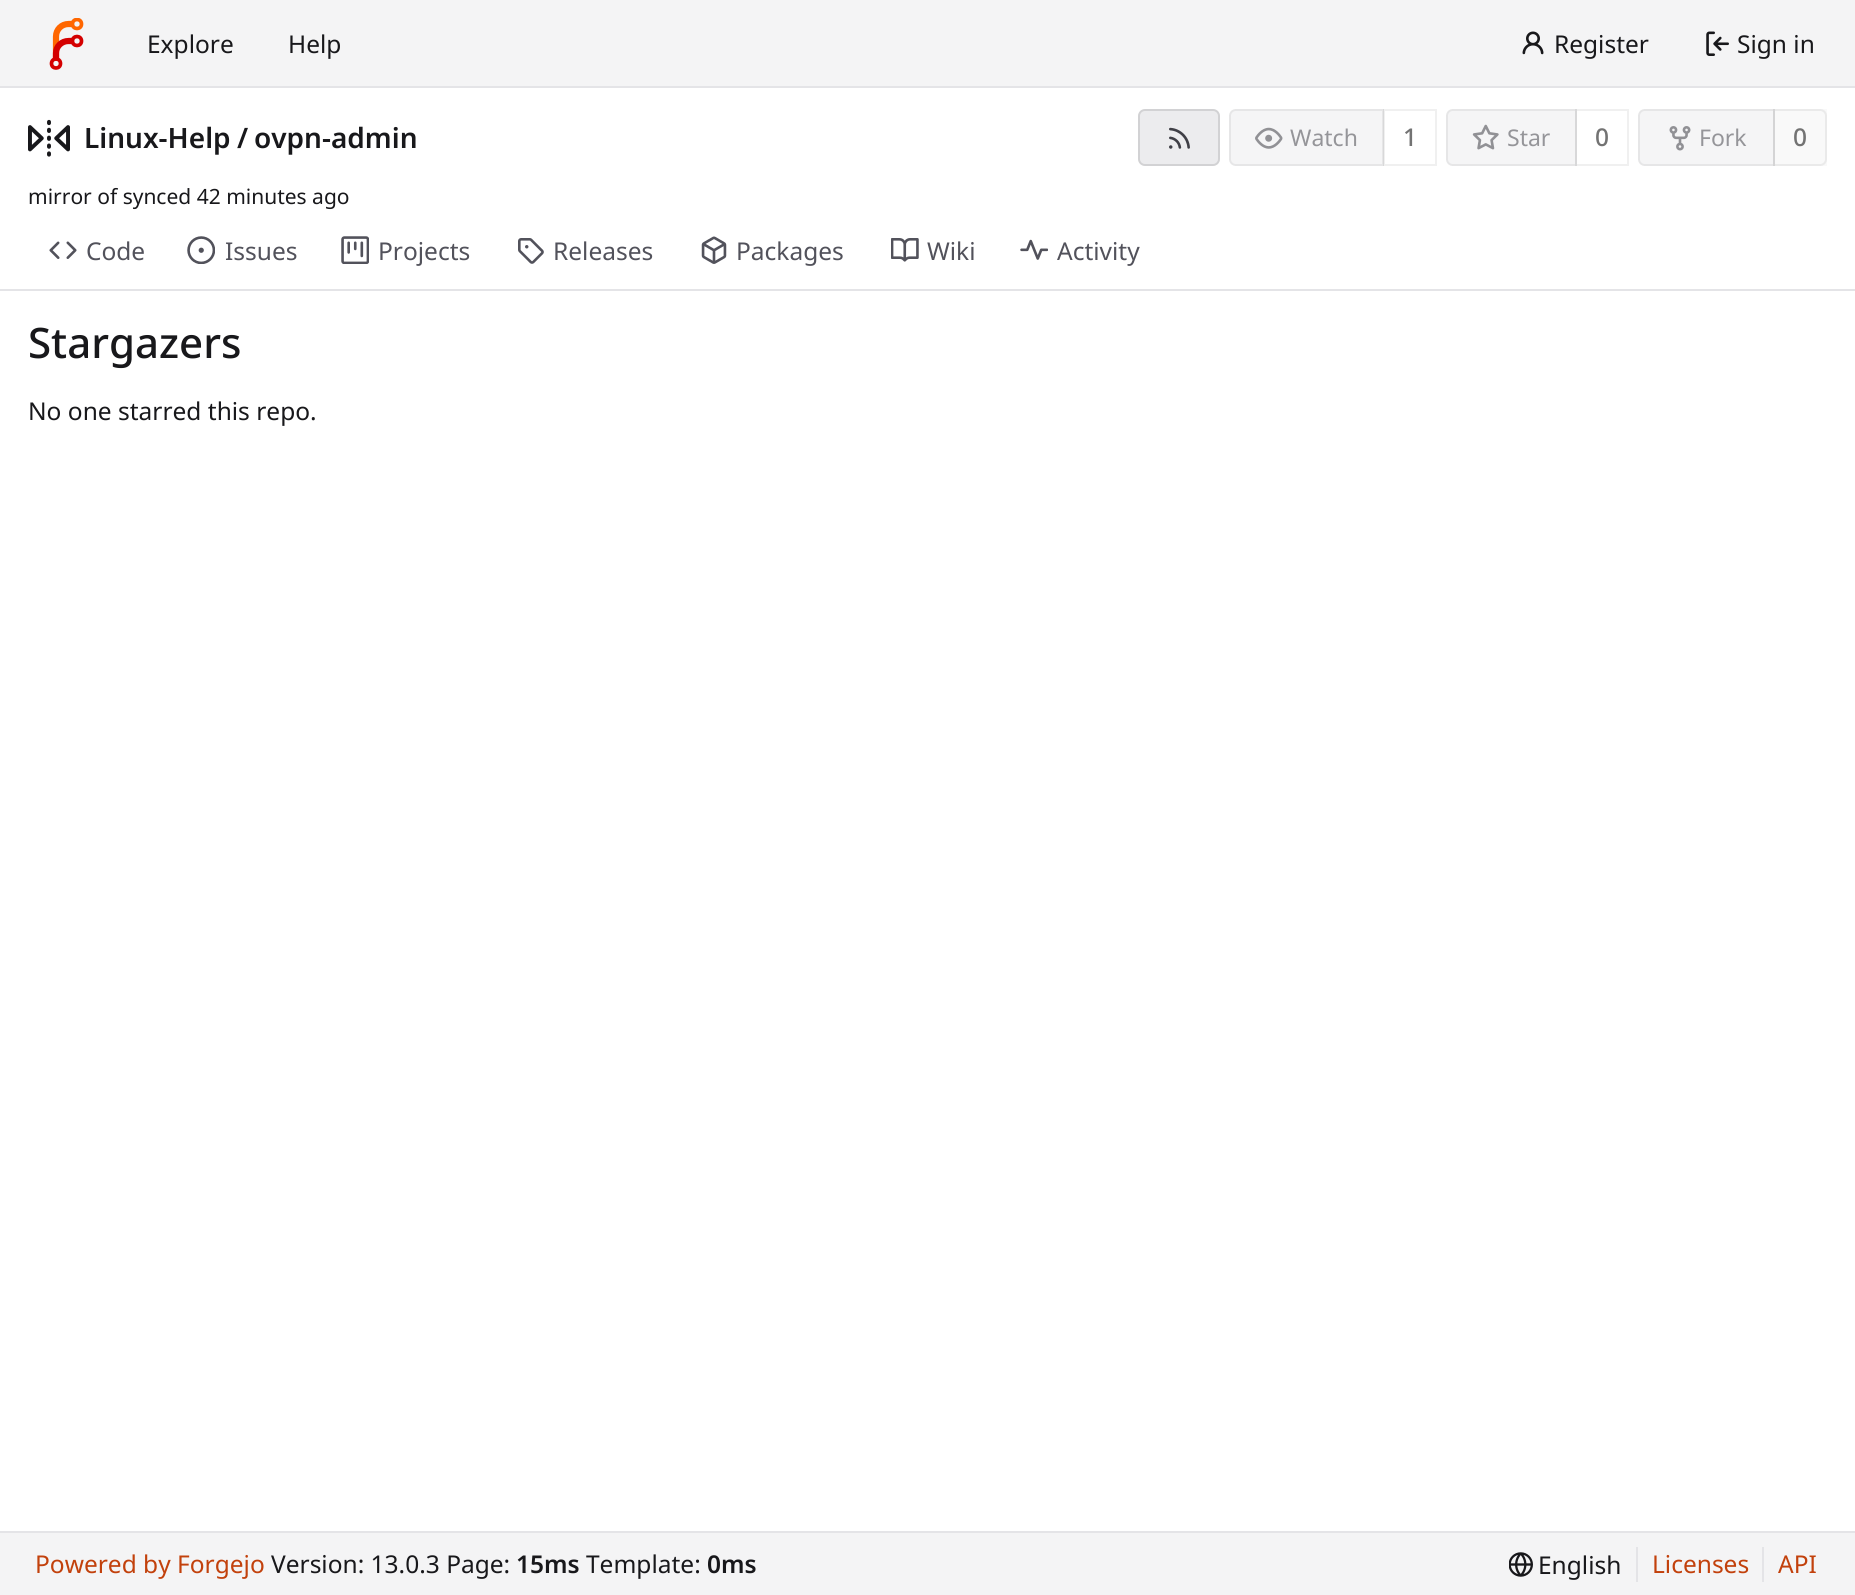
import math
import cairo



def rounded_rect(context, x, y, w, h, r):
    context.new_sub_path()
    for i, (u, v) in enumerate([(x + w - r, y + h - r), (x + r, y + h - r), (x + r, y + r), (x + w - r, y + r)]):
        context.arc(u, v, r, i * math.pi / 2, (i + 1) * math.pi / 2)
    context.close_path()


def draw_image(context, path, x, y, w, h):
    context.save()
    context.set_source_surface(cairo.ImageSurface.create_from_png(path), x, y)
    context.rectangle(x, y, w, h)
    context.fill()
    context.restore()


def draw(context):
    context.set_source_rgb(1, 1, 1)
    context.paint()
    context.set_source_rgb(244 / 255, 244 / 255, 245 / 255)
    context.rectangle(0, 0, 1855, 86)
    context.fill()
    context.set_source_rgb(228 / 255, 228 / 255, 231 / 255)
    context.rectangle(0, 86, 1855, 2)
    context.fill()
    context.new_path()
    context.move_to(56, 60.5)
    context.line_to(56, 36.5)
    context.curve_to(56, 29.5, 61.5, 24, 68.5, 24)
    context.line_to(73.5, 24)
    context.set_source_rgb(1, 102 / 255, 0)
    context.set_line_width(6.2)
    context.stroke()
    context.new_path()
    context.move_to(56, 60.5)
    context.line_to(56, 53)
    context.curve_to(56, 46.5, 61.5, 41, 68.5, 41)
    context.line_to(73.5, 41)
    context.set_source_rgb(212 / 255, 0, 0)
    context.stroke()
    context.save()
    context.rectangle(40, 18, 53, 52)
    context.clip()
    context.arc(77, 24, 4.5, 0, 2 * math.pi)
    context.set_source_rgb(1, 102 / 255, 0)
    context.set_line_width(3.7)
    context.stroke()
    context.restore()
    context.arc(77, 41, 4.5, 0, 2 * math.pi)
    context.set_line_width(3.7)
    context.stroke()
    context.arc(56, 63.5, 4.5, 0, 2 * math.pi)
    context.stroke()
    draw_image(context, "images/1.png", 1522, 31, 22, 24)
    draw_image(context, "images/2.png", 1706, 31, 23, 25)
    draw_image(context, "images/3.png", 28, 119, 42, 38)
    context.set_source_rgb(236 / 255, 236 / 255, 238 / 255)
    rounded_rect(context, 1138, 109, 82, 57, 7)
    context.fill()
    rounded_rect(context, 1139, 110, 80, 55, 6)
    context.set_source_rgba(0, 0, 0, 0.11)
    context.set_line_width(2)
    context.stroke()
    draw_image(context, "images/4.png", 1169, 127, 21, 22)
    context.set_source_rgb(245 / 255, 245 / 255, 246 / 255)
    context.new_path()
    context.move_to(1236, 109)
    context.line_to(1384, 109)
    context.line_to(1384, 166)
    context.line_to(1236, 166)
    context.curve_to(1232, 166, 1229, 163, 1229, 159)
    context.line_to(1229, 116)
    context.curve_to(1229, 112, 1232, 109, 1236, 109)
    context.close_path()
    context.fill()
    context.new_path()
    context.move_to(1236, 110)
    context.line_to(1383, 110)
    context.line_to(1383, 165)
    context.line_to(1236, 165)
    context.curve_to(1232.5, 165, 1230, 162.5, 1230, 159)
    context.line_to(1230, 116)
    context.curve_to(1230, 112.5, 1232.5, 110, 1236, 110)
    context.close_path()
    context.set_source_rgba(115 / 255, 115 / 255, 115 / 255, 0.11)
    context.stroke()
    draw_image(context, "images/5.png", 1255, 127, 28, 22)
    context.rectangle(1384, 110, 52, 55)
    context.set_source_rgba(0, 0, 0, 0.06)
    context.stroke()
    context.set_source_rgb(245 / 255, 245 / 255, 246 / 255)
    context.new_path()
    context.move_to(1453, 109)
    context.line_to(1577, 109)
    context.line_to(1577, 166)
    context.line_to(1453, 166)
    context.curve_to(1449, 166, 1446, 163, 1446, 159)
    context.line_to(1446, 116)
    context.curve_to(1446, 112, 1449, 109, 1453, 109)
    context.close_path()
    context.fill()
    context.new_path()
    context.move_to(1453, 110)
    context.line_to(1576, 110)
    context.line_to(1576, 165)
    context.line_to(1453, 165)
    context.curve_to(1449.5, 165, 1447, 162.5, 1447, 159)
    context.line_to(1447, 116)
    context.curve_to(1447, 112.5, 1449.5, 110, 1453, 110)
    context.close_path()
    context.set_source_rgba(115 / 255, 115 / 255, 115 / 255, 0.11)
    context.stroke()
    draw_image(context, "images/6.png", 1472, 124, 27, 26)
    context.rectangle(1576, 110, 52, 55)
    context.set_source_rgba(0, 0, 0, 0.06)
    context.stroke()
    context.set_source_rgb(245 / 255, 245 / 255, 246 / 255)
    context.new_path()
    context.move_to(1645, 109)
    context.line_to(1775, 109)
    context.line_to(1775, 166)
    context.line_to(1645, 166)
    context.curve_to(1641, 166, 1638, 163, 1638, 159)
    context.line_to(1638, 116)
    context.curve_to(1638, 112, 1641, 109, 1645, 109)
    context.close_path()
    context.fill()
    context.new_path()
    context.move_to(1645, 110)
    context.line_to(1774, 110)
    context.line_to(1774, 165)
    context.line_to(1645, 165)
    context.curve_to(1641.5, 165, 1639, 162.5, 1639, 159)
    context.line_to(1639, 116)
    context.curve_to(1639, 112.5, 1641.5, 110, 1645, 110)
    context.close_path()
    context.set_source_rgba(115 / 255, 115 / 255, 115 / 255, 0.11)
    context.stroke()
    draw_image(context, "images/7.png", 1669, 126, 22, 25)
    context.set_source_rgba(115 / 255, 115 / 255, 115 / 255, 0.04)
    context.rectangle(1773, 109, 54, 57)
    context.fill()
    context.new_path()
    context.move_to(1774, 110)
    context.line_to(1820, 110)
    context.curve_to(1823.5, 110, 1826, 112.5, 1826, 116)
    context.line_to(1826, 159)
    context.curve_to(1826, 162.5, 1823.5, 165, 1820, 165)
    context.line_to(1774, 165)
    context.close_path()
    context.set_source_rgba(115 / 255, 115 / 255, 115 / 255, 0.11)
    context.stroke()
    draw_image(context, "images/8.png", 49, 241, 28, 18)
    draw_image(context, "images/9.png", 187, 236, 28, 28)
    draw_image(context, "images/10.png", 341, 236, 28, 28)
    draw_image(context, "images/11.png", 518, 238, 26, 26)
    draw_image(context, "images/12.png", 701, 236, 26, 28)
    draw_image(context, "images/13.png", 891, 238, 28, 24)
    draw_image(context, "images/14.png", 1020, 239, 28, 21)
    context.set_source_rgb(228 / 255, 228 / 255, 231 / 255)
    context.rectangle(0, 289, 1855, 2)
    context.fill()
    context.set_source_rgb(244 / 255, 244 / 255, 245 / 255)
    context.rectangle(0, 1533, 1855, 62)
    context.fill()
    context.set_source_rgb(228 / 255, 228 / 255, 231 / 255)
    context.rectangle(0, 1531, 1855, 2)
    context.fill()
    draw_image(context, "images/15.png", 1509, 1552, 24, 25)
    context.rectangle(1636, 1547, 2, 35)
    context.fill()
    context.rectangle(1762, 1547, 2, 35)
    context.fill()
    context.select_font_face("Noto Sans")
    context.set_font_size(24.5)
    context.set_source_rgb(24 / 255, 24 / 255, 27 / 255)
    context.move_to(147, 53)
    context.show_text("Explore")
    context.move_to(288, 53)
    context.show_text("Help")
    context.move_to(1554, 53)
    context.show_text("Register")
    context.move_to(1737, 53)
    context.show_text("Sign in")
    context.select_font_face("Noto Sans SemiBold")
    context.set_font_size(28)
    context.move_to(84, 148)
    context.show_text("Linux-Help")
    context.move_to(237, 148)
    context.show_text("/")
    context.move_to(254, 148)
    context.show_text("ovpn-admin")
    context.select_font_face("Noto Sans")
    context.set_font_size(23)
    context.set_source_rgb(149 / 255, 149 / 255, 153 / 255)
    context.move_to(1290, 146)
    context.show_text("Watch")
    context.select_font_face("Noto Sans Medium")
    context.set_font_size(24.5)
    context.set_source_rgb(115 / 255, 115 / 255, 115 / 255)
    context.move_to(1403, 146)
    context.show_text("1")
    context.select_font_face("Noto Sans")
    context.set_font_size(23)
    context.set_source_rgb(149 / 255, 149 / 255, 153 / 255)
    context.move_to(1507, 146)
    context.show_text("Star")
    context.select_font_face("Noto Sans Medium")
    context.set_font_size(24.5)
    context.set_source_rgb(115 / 255, 115 / 255, 115 / 255)
    context.move_to(1595, 146)
    context.show_text("0")
    context.select_font_face("Noto Sans")
    context.set_font_size(23)
    context.set_source_rgb(149 / 255, 149 / 255, 153 / 255)
    context.move_to(1699, 146)
    context.show_text("Fork")
    context.select_font_face("Noto Sans Medium")
    context.set_font_size(24.5)
    context.set_source_rgb(115 / 255, 115 / 255, 115 / 255)
    context.move_to(1793, 146)
    context.show_text("0")
    context.select_font_face("Noto Sans")
    context.set_font_size(21)
    context.set_source_rgb(24 / 255, 24 / 255, 27 / 255)
    context.move_to(28, 204)
    context.show_text("mirror of synced 42 minutes ago")
    context.set_font_size(24.5)
    context.set_source_rgb(82 / 255, 82 / 255, 91 / 255)
    context.move_to(86, 260)
    context.show_text("Code")
    context.move_to(225, 260)
    context.show_text("Issues")
    context.move_to(378, 260)
    context.show_text("Projects")
    context.move_to(553, 260)
    context.show_text("Releases")
    context.move_to(736, 260)
    context.show_text("Packages")
    context.move_to(927, 260)
    context.show_text("Wiki")
    context.move_to(1057, 260)
    context.show_text("Activity")
    context.select_font_face("Noto Sans Medium")
    context.set_font_size(42)
    context.set_source_rgb(24 / 255, 24 / 255, 27 / 255)
    context.move_to(28, 358)
    context.show_text("Stargazers")
    context.select_font_face("Noto Sans")
    context.set_font_size(24.5)
    context.move_to(28, 420)
    context.show_text("No one starred this repo.")
    context.set_source_rgb(194 / 255, 65 / 255, 12 / 255)
    context.move_to(35, 1573)
    context.show_text("Powered by Forgejo")
    context.set_source_rgb(24 / 255, 24 / 255, 27 / 255)
    context.move_to(271, 1573)
    context.show_text("Version: 13.0.3 Page:")
    context.select_font_face("Noto Sans SemiBold")
    context.move_to(516, 1573)
    context.show_text("15ms")
    context.select_font_face("Noto Sans")
    context.move_to(586, 1573)
    context.show_text("Template:")
    context.select_font_face("Noto Sans SemiBold")
    context.move_to(707, 1573)
    context.show_text("0ms")
    context.select_font_face("Noto Sans")
    context.move_to(1538, 1574)
    context.show_text("English")
    context.set_source_rgb(194 / 255, 65 / 255, 12 / 255)
    context.move_to(1652, 1573)
    context.show_text("Licenses")
    context.move_to(1778, 1573)
    context.show_text("API")


surface = cairo.ImageSurface(cairo.Format.RGB24, 1855, 1595)
context = cairo.Context(surface)
options = cairo.FontOptions()
options.set_hint_metrics(cairo.HintMetrics.OFF)
options.set_hint_style(cairo.HintStyle.NONE)
context.set_font_options(options)
context.set_miter_limit(4)
draw(context)
surface.write_to_png("out.png")
